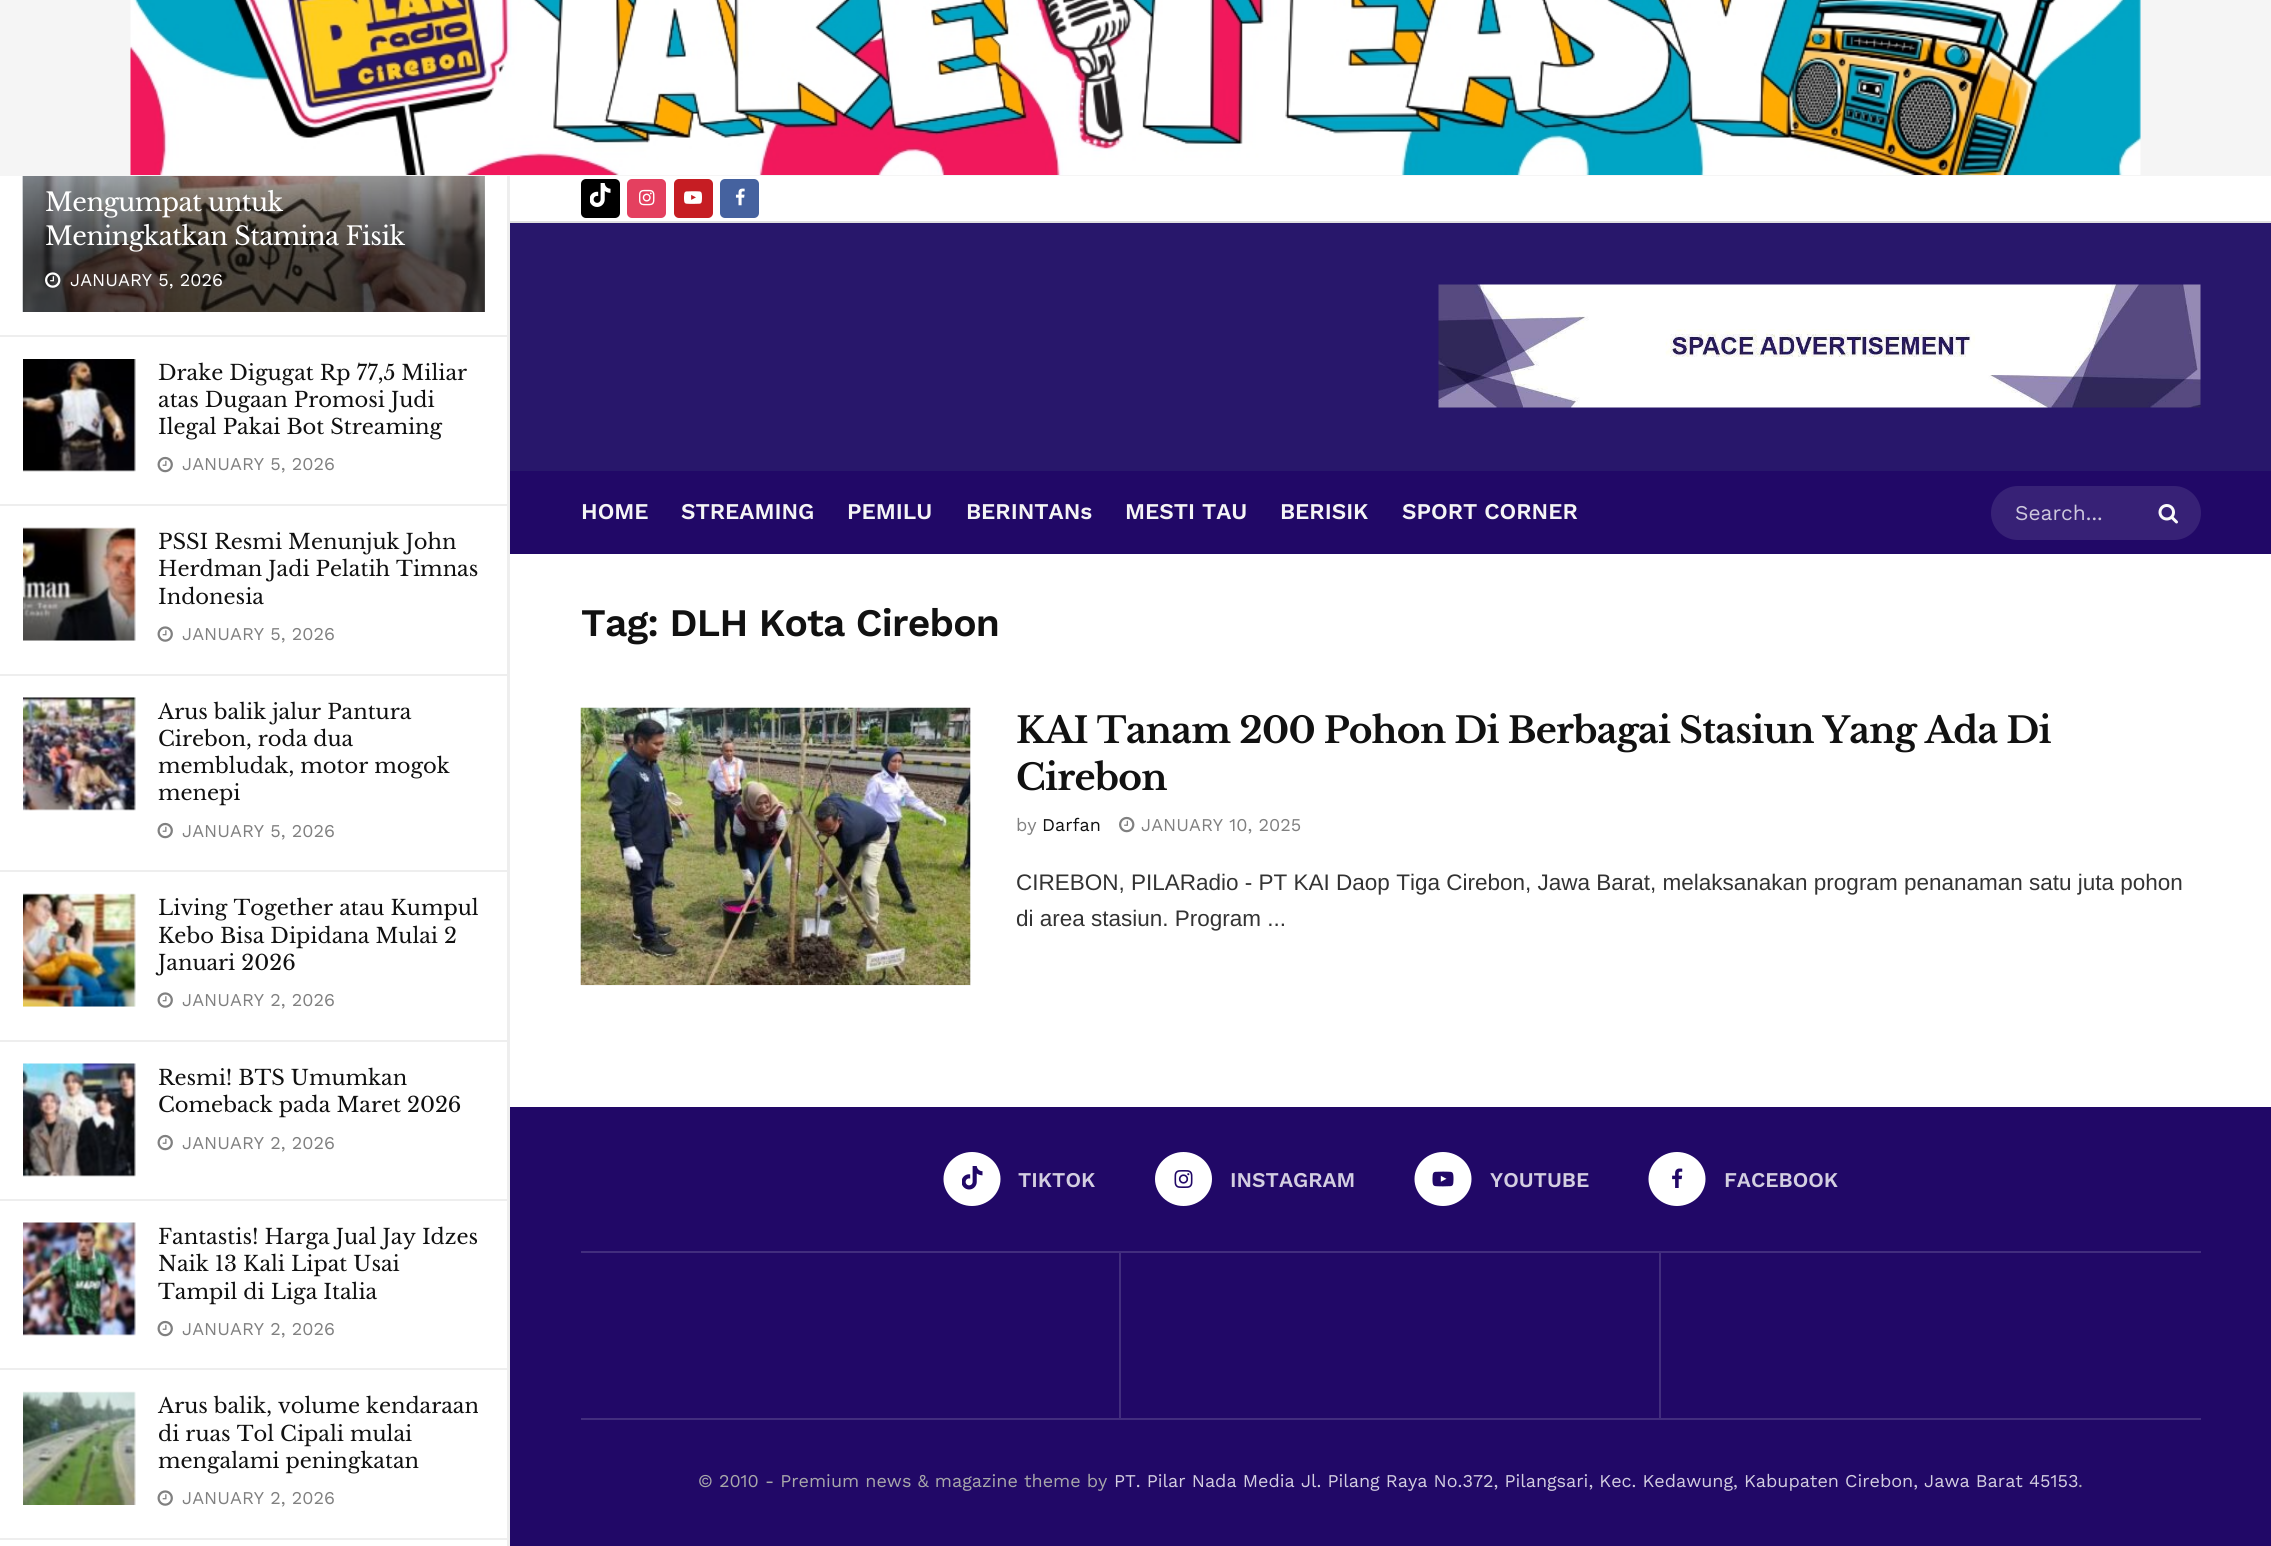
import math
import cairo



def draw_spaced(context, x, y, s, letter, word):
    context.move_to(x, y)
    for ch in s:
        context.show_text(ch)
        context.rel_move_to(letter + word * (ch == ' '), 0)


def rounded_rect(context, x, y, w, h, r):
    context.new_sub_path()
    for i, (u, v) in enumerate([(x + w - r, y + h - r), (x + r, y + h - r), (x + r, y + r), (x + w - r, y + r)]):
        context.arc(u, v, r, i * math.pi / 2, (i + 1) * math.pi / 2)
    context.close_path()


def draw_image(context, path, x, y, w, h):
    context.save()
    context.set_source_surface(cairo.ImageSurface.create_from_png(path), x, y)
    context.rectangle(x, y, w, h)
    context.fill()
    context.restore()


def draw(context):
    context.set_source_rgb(1, 1, 1)
    context.paint()
    context.set_source_rgb(245 / 255, 245 / 255, 245 / 255)
    context.rectangle(0, 0, 2271, 176)
    context.fill()
    draw_image(context, "images/1.png", 130, 0, 2011, 175)
    context.set_source_rgb(238 / 255, 238 / 255, 238 / 255)
    context.rectangle(507, 176, 3, 1370)
    context.fill()
    context.rectangle(0, 335, 507, 2)
    context.fill()
    context.set_source_rgb(247 / 255, 247 / 255, 247 / 255)
    context.rectangle(484, 176, 1, 136)
    context.fill()
    draw_image(context, "images/2.png", 22, 176, 1, 136)
    draw_image(context, "images/3.png", 22, 176, 463, 136)
    gradient = cairo.LinearGradient(254, 123, 254, 312)
    gradient.add_color_stop_rgba(0, 0, 0, 0, 0)
    gradient.add_color_stop_rgba(0.7, 0, 0, 0, 0.65)
    context.set_source(gradient)
    context.rectangle(23, 176, 462, 136)
    context.fill()
    draw_image(context, "images/4.png", 45, 272, 16, 16)
    context.set_source_rgb(238 / 255, 238 / 255, 238 / 255)
    context.rectangle(0, 504, 507, 2)
    context.fill()
    context.set_source_rgb(247 / 255, 247 / 255, 247 / 255)
    context.rectangle(23, 359, 112, 112)
    context.fill()
    draw_image(context, "images/5.png", 23, 359, 113, 113)
    draw_image(context, "images/6.png", 157, 456, 16, 17)
    context.set_source_rgb(238 / 255, 238 / 255, 238 / 255)
    context.rectangle(0, 674, 507, 2)
    context.fill()
    context.set_source_rgb(247 / 255, 247 / 255, 247 / 255)
    context.rectangle(23, 528, 112, 113)
    context.fill()
    draw_image(context, "images/7.png", 23, 527, 113, 114)
    draw_image(context, "images/8.png", 157, 626, 16, 16)
    context.set_source_rgb(238 / 255, 238 / 255, 238 / 255)
    context.rectangle(0, 870, 507, 2)
    context.fill()
    context.set_source_rgb(247 / 255, 247 / 255, 247 / 255)
    context.rectangle(23, 698, 112, 112)
    context.fill()
    draw_image(context, "images/9.png", 23, 697, 113, 114)
    draw_image(context, "images/6.png", 157, 822, 16, 17)
    context.set_source_rgb(238 / 255, 238 / 255, 238 / 255)
    context.rectangle(0, 1040, 507, 2)
    context.fill()
    context.set_source_rgb(247 / 255, 247 / 255, 247 / 255)
    context.rectangle(23, 894, 112, 113)
    context.fill()
    draw_image(context, "images/10.png", 23, 893, 113, 114)
    draw_image(context, "images/8.png", 157, 992, 16, 16)
    context.set_source_rgb(238 / 255, 238 / 255, 238 / 255)
    context.rectangle(0, 1199, 507, 2)
    context.fill()
    context.set_source_rgb(247 / 255, 247 / 255, 247 / 255)
    context.rectangle(23, 1064, 112, 112)
    context.fill()
    draw_image(context, "images/11.png", 23, 1063, 113, 114)
    draw_image(context, "images/6.png", 157, 1134, 16, 17)
    context.set_source_rgb(238 / 255, 238 / 255, 238 / 255)
    context.rectangle(0, 1368, 507, 2)
    context.fill()
    context.set_source_rgb(247 / 255, 247 / 255, 247 / 255)
    context.rectangle(23, 1223, 112, 112)
    context.fill()
    draw_image(context, "images/12.png", 23, 1222, 113, 114)
    draw_image(context, "images/6.png", 157, 1320, 16, 17)
    context.set_source_rgb(238 / 255, 238 / 255, 238 / 255)
    context.rectangle(0, 1538, 507, 2)
    context.fill()
    context.set_source_rgb(247 / 255, 247 / 255, 247 / 255)
    context.rectangle(23, 1392, 112, 113)
    context.fill()
    draw_image(context, "images/13.png", 23, 1391, 113, 114)
    draw_image(context, "images/8.png", 157, 1490, 16, 16)
    context.set_source_rgb(224 / 255, 224 / 255, 224 / 255)
    context.rectangle(510, 221, 1761, 2)
    context.fill()
    context.set_source_rgb(0, 0, 0)
    rounded_rect(context, 581, 179, 39, 39, 5)
    context.fill()
    draw_image(context, "images/14.png", 590, 183, 21, 24)
    context.set_source_rgb(228 / 255, 64 / 255, 95 / 255)
    rounded_rect(context, 627, 179, 39, 39, 5)
    context.fill()
    draw_image(context, "images/15.png", 639, 189, 16, 17)
    context.set_source_rgb(198 / 255, 29 / 255, 35 / 255)
    rounded_rect(context, 674, 179, 39, 39, 5)
    context.fill()
    draw_image(context, "images/16.png", 684, 191, 18, 13)
    context.set_source_rgb(69 / 255, 98 / 255, 159 / 255)
    rounded_rect(context, 720, 179, 39, 39, 5)
    context.fill()
    draw_image(context, "images/17.png", 735, 188, 10, 18)
    context.set_source_rgb(40 / 255, 23 / 255, 107 / 255)
    context.rectangle(510, 223, 1761, 248)
    context.fill()
    draw_image(context, "images/18.png", 1438, 284, 763, 124)
    context.set_source_rgb(33 / 255, 8 / 255, 103 / 255)
    context.rectangle(510, 471, 1761, 83)
    context.fill()
    context.set_source_rgb(55 / 255, 33 / 255, 118 / 255)
    rounded_rect(context, 1991, 486, 210, 54, 27)
    context.fill()
    draw_image(context, "images/19.png", 2158, 504, 20, 20)
    context.set_source_rgb(247 / 255, 247 / 255, 247 / 255)
    context.rectangle(581, 708, 390, 278)
    context.fill()
    draw_image(context, "images/20.png", 580, 707, 391, 278)
    draw_image(context, "images/21.png", 1119, 816, 16, 17)
    context.set_source_rgb(33 / 255, 8 / 255, 103 / 255)
    context.rectangle(510, 1107, 1761, 439)
    context.fill()
    context.set_source_rgb(66 / 255, 45 / 255, 126 / 255)
    context.rectangle(581, 1251, 1620, 2)
    context.fill()
    context.set_source_rgb(1, 1, 1)
    context.new_path()
    context.move_to(972, 1152)
    context.curve_to(987.5, 1152, 1000.5, 1164, 1000.5, 1179)
    context.curve_to(1000.5, 1194, 987.5, 1206, 972, 1206)
    context.curve_to(956.5, 1206, 943.5, 1194, 943.5, 1179)
    context.curve_to(943.5, 1164, 956.5, 1152, 972, 1152)
    context.close_path()
    context.fill()
    draw_image(context, "images/22.png", 962, 1166, 21, 24)
    context.new_path()
    context.move_to(1183.5, 1152)
    context.curve_to(1199, 1152, 1212, 1164, 1212, 1179)
    context.curve_to(1212, 1194, 1199, 1206, 1183.5, 1206)
    context.curve_to(1168, 1206, 1155, 1194, 1155, 1179)
    context.curve_to(1155, 1164, 1168, 1152, 1183.5, 1152)
    context.close_path()
    context.fill()
    draw_image(context, "images/23.png", 1174, 1170, 19, 18)
    context.new_path()
    context.move_to(1443, 1152)
    context.curve_to(1458.5, 1152, 1471.5, 1164, 1471.5, 1179)
    context.curve_to(1471.5, 1194, 1458.5, 1206, 1443, 1206)
    context.curve_to(1427.5, 1206, 1414.5, 1194, 1414.5, 1179)
    context.curve_to(1414.5, 1164, 1427.5, 1152, 1443, 1152)
    context.close_path()
    context.fill()
    draw_image(context, "images/24.png", 1432, 1171, 22, 16)
    context.new_path()
    context.move_to(1677, 1152)
    context.curve_to(1692.5, 1152, 1705.5, 1164, 1705.5, 1179)
    context.curve_to(1705.5, 1194, 1692.5, 1206, 1677, 1206)
    context.curve_to(1661.5, 1206, 1648.5, 1194, 1648.5, 1179)
    context.curve_to(1648.5, 1164, 1661.5, 1152, 1677, 1152)
    context.close_path()
    context.fill()
    draw_image(context, "images/25.png", 1672, 1168, 11, 20)
    context.set_source_rgb(66 / 255, 45 / 255, 126 / 255)
    context.rectangle(1119, 1253, 2, 165)
    context.fill()
    context.rectangle(1659, 1253, 2, 165)
    context.fill()
    context.rectangle(581, 1418, 1620, 2)
    context.fill()
    context.select_font_face("Libre Baskerville")
    context.set_font_size(25.5)
    context.set_source_rgb(1, 1, 1)
    draw_spaced(context, 45, 211, "Mengumpat untuk", -0.5, 0)
    draw_spaced(context, 45, 245, "Meningkatkan Stamina Fisik", -0.5, 0)
    context.select_font_face("Work Sans")
    context.set_font_size(18)
    context.move_to(70, 286)
    context.show_text("JANUARY 5, 2026")
    context.select_font_face("Libre Baskerville")
    context.set_font_size(21)
    context.set_source_rgb(17 / 255, 17 / 255, 17 / 255)
    context.move_to(158, 380)
    context.show_text("Drake Digugat Rp 77,5 Miliar")
    context.move_to(158, 407)
    context.show_text("atas Dugaan Promosi Judi")
    context.move_to(158, 434)
    context.show_text("Ilegal Pakai Bot Streaming")
    context.select_font_face("Work Sans")
    context.set_font_size(18)
    context.set_source_rgb(128 / 255, 128 / 255, 128 / 255)
    context.move_to(182, 470)
    context.show_text("JANUARY 5, 2026")
    context.select_font_face("Libre Baskerville")
    context.set_font_size(21)
    context.set_source_rgb(17 / 255, 17 / 255, 17 / 255)
    context.move_to(158, 549)
    context.show_text("PSSI Resmi Menunjuk John")
    context.move_to(158, 576)
    context.show_text("Herdman Jadi Pelatih Timnas")
    context.move_to(158, 604)
    context.show_text("Indonesia")
    context.select_font_face("Work Sans")
    context.set_font_size(18)
    context.set_source_rgb(128 / 255, 128 / 255, 128 / 255)
    context.move_to(182, 640)
    context.show_text("JANUARY 5, 2026")
    context.select_font_face("Libre Baskerville")
    context.set_font_size(21)
    context.set_source_rgb(17 / 255, 17 / 255, 17 / 255)
    context.move_to(158, 719)
    context.show_text("Arus balik jalur Pantura")
    context.move_to(158, 746)
    context.show_text("Cirebon, roda dua")
    context.move_to(158, 773)
    context.show_text("membludak, motor mogok")
    context.move_to(158, 800)
    context.show_text("menepi")
    context.select_font_face("Work Sans")
    context.set_font_size(18)
    context.set_source_rgb(128 / 255, 128 / 255, 128 / 255)
    context.move_to(182, 837)
    context.show_text("JANUARY 5, 2026")
    context.select_font_face("Libre Baskerville")
    context.set_font_size(21)
    context.set_source_rgb(17 / 255, 17 / 255, 17 / 255)
    context.move_to(158, 915)
    context.show_text("Living Together atau Kumpul")
    context.move_to(158, 943)
    context.show_text("Kebo Bisa Dipidana Mulai 2")
    context.move_to(158, 970)
    context.show_text("Januari 2026")
    context.select_font_face("Work Sans")
    context.set_font_size(18)
    context.set_source_rgb(128 / 255, 128 / 255, 128 / 255)
    context.move_to(182, 1006)
    context.show_text("JANUARY 2, 2026")
    context.select_font_face("Libre Baskerville")
    context.set_font_size(21)
    context.set_source_rgb(17 / 255, 17 / 255, 17 / 255)
    context.move_to(158, 1085)
    context.show_text("Resmi! BTS Umumkan")
    context.move_to(158, 1112)
    context.show_text("Comeback pada Maret 2026")
    context.select_font_face("Work Sans")
    context.set_font_size(18)
    context.set_source_rgb(128 / 255, 128 / 255, 128 / 255)
    context.move_to(182, 1149)
    context.show_text("JANUARY 2, 2026")
    context.select_font_face("Libre Baskerville")
    context.set_font_size(21)
    context.set_source_rgb(17 / 255, 17 / 255, 17 / 255)
    context.move_to(158, 1244)
    context.show_text("Fantastis! Harga Jual Jay Idzes")
    context.move_to(158, 1271)
    context.show_text("Naik 13 Kali Lipat Usai")
    context.move_to(158, 1299)
    context.show_text("Tampil di Liga Italia")
    context.select_font_face("Work Sans")
    context.set_font_size(18)
    context.set_source_rgb(128 / 255, 128 / 255, 128 / 255)
    context.move_to(182, 1335)
    context.show_text("JANUARY 2, 2026")
    context.select_font_face("Libre Baskerville")
    context.set_font_size(21)
    context.set_source_rgb(17 / 255, 17 / 255, 17 / 255)
    context.move_to(158, 1413)
    context.show_text("Arus balik, volume kendaraan")
    context.move_to(158, 1441)
    context.show_text("di ruas Tol Cipali mulai")
    context.move_to(158, 1468)
    context.show_text("mengalami peningkatan")
    context.select_font_face("Work Sans")
    context.set_font_size(18)
    context.set_source_rgb(128 / 255, 128 / 255, 128 / 255)
    context.move_to(182, 1504)
    context.show_text("JANUARY 2, 2026")
    context.select_font_face("Work Sans SemiBold")
    context.set_font_size(22.5)
    context.set_source_rgb(245 / 255, 245 / 255, 245 / 255)
    context.move_to(581, 519)
    context.show_text("HOME")
    context.move_to(681, 519)
    context.show_text("STREAMING")
    context.move_to(847, 519)
    context.show_text("PEMILU")
    context.move_to(966, 519)
    context.show_text("BERINTANs")
    context.move_to(1125, 519)
    context.show_text("MESTI TAU")
    context.move_to(1280, 519)
    context.show_text("BERISIK")
    context.move_to(1402, 519)
    context.show_text("SPORT CORNER")
    context.select_font_face("Work Sans")
    context.set_font_size(21)
    context.set_source_rgb(205 / 255, 200 / 255, 221 / 255)
    context.move_to(2015, 520)
    context.show_text("Search...")
    context.select_font_face("Work Sans SemiBold")
    context.set_font_size(39)
    context.set_source_rgb(17 / 255, 17 / 255, 17 / 255)
    draw_spaced(context, 581, 636, "Tag: DLH Kota Cirebon", -0.75, 0)
    context.select_font_face("Libre Baskerville", cairo.FontSlant.NORMAL, cairo.FontWeight.BOLD)
    context.set_font_size(36)
    draw_spaced(context, 1016, 743, "KAI Tanam 200 Pohon Di Berbagai Stasiun Yang Ada Di", -0.72, 0)
    draw_spaced(context, 1016, 790, "Cirebon", -0.72, 0)
    context.select_font_face("Work Sans")
    context.set_font_size(18)
    context.set_source_rgb(128 / 255, 128 / 255, 128 / 255)
    context.move_to(1016, 831)
    context.show_text("by")
    context.set_source_rgb(17 / 255, 17 / 255, 17 / 255)
    context.move_to(1042, 831)
    context.show_text("Darfan")
    context.set_source_rgb(128 / 255, 128 / 255, 128 / 255)
    context.move_to(1141, 831)
    context.show_text("JANUARY 10, 2025")
    context.select_font_face("Liberation Sans")
    context.set_font_size(22.5)
    context.set_source_rgb(51 / 255, 51 / 255, 51 / 255)
    context.move_to(1016, 890)
    context.show_text("CIREBON, PILARadio - PT KAI Daop Tiga Cirebon, Jawa Barat, melaksanakan program penanaman satu juta pohon")
    context.move_to(1016, 926)
    context.show_text("di area stasiun. Program ...")
    context.select_font_face("Work Sans SemiBold")
    context.set_font_size(21)
    context.set_source_rgb(211 / 255, 206 / 255, 225 / 255)
    context.move_to(1018, 1187)
    context.show_text("TIKTOK")
    context.move_to(1230, 1187)
    context.show_text("INSTAGRAM")
    context.move_to(1490, 1187)
    context.show_text("YOUTUBE")
    context.move_to(1724, 1187)
    context.show_text("FACEBOOK")
    context.select_font_face("Work Sans")
    context.set_font_size(18)
    context.set_source_rgb(168 / 255, 168 / 255, 170 / 255)
    context.move_to(698, 1487)
    context.show_text("© 2010 - Premium news & magazine theme by")
    context.set_source_rgb(211 / 255, 206 / 255, 225 / 255)
    context.move_to(1114, 1487)
    context.show_text("PT. Pilar Nada Media Jl. Pilang Raya No.372, Pilangsari, Kec. Kedawung, Kabupaten Cirebon, Jawa Barat 45153")
    context.set_source_rgb(168 / 255, 168 / 255, 170 / 255)
    context.move_to(2078, 1487)
    context.show_text(".")


surface = cairo.ImageSurface(cairo.Format.RGB24, 2271, 1546)
context = cairo.Context(surface)
options = cairo.FontOptions()
options.set_hint_metrics(cairo.HintMetrics.OFF)
options.set_hint_style(cairo.HintStyle.NONE)
context.set_font_options(options)
context.set_miter_limit(4)
draw(context)
surface.write_to_png("out.png")
